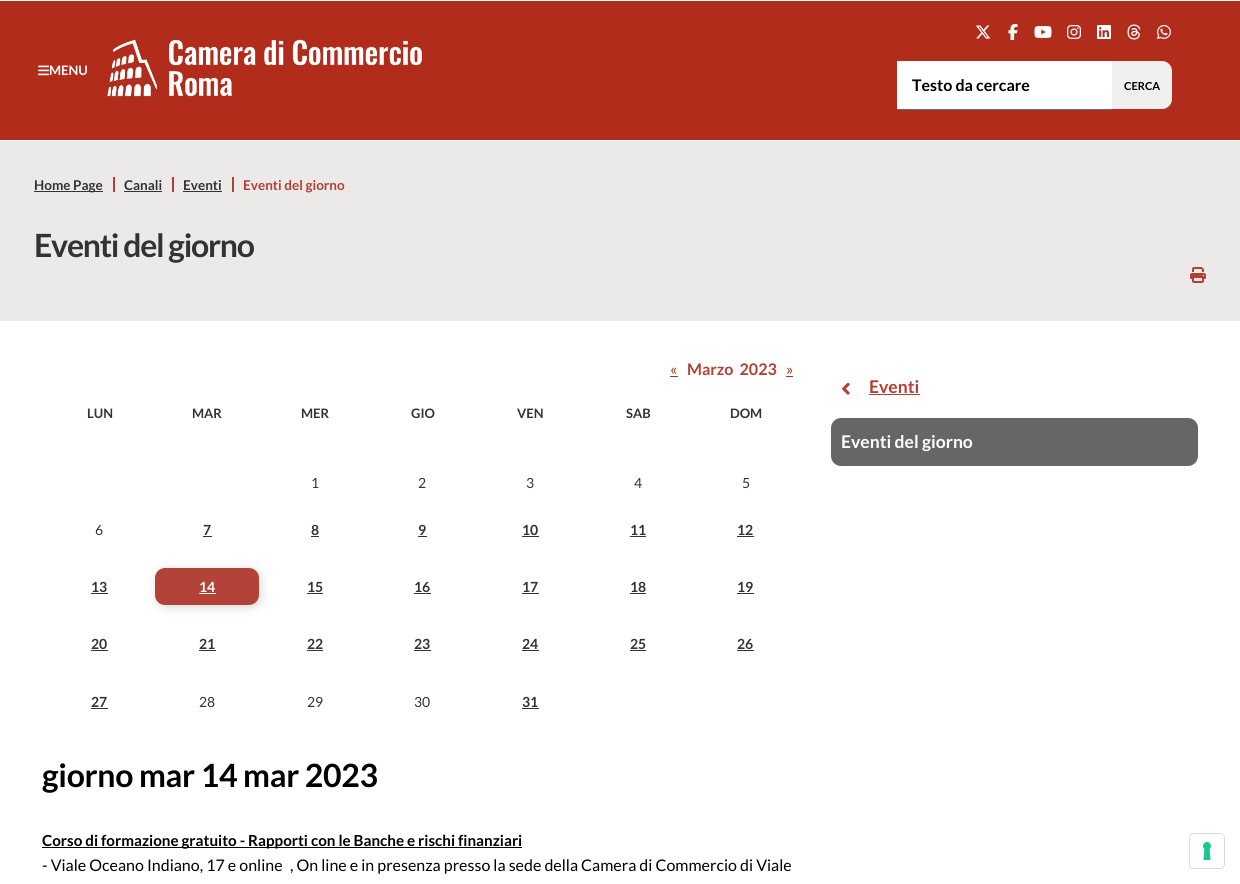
import math
import cairo



def draw_spaced(context, x, y, s, letter, word):
    context.move_to(x, y)
    for ch in s:
        context.show_text(ch)
        context.rel_move_to(letter + word * (ch == ' '), 0)


def rounded_rect(context, x, y, w, h, r):
    context.new_sub_path()
    for i, (u, v) in enumerate([(x + w - r, y + h - r), (x + r, y + h - r), (x + r, y + r), (x + w - r, y + r)]):
        context.arc(u, v, r, i * math.pi / 2, (i + 1) * math.pi / 2)
    context.close_path()


def draw_shadow(context, x, y, w, h, r, blur, alpha):
    context.push_group_with_content(cairo.Content.ALPHA)
    context.set_operator(cairo.Operator.SOURCE)
    for i in range(15, -16, -2):
        e = blur * i / 6
        if min(w, h) + 2 * e > 0:
            context.set_source_rgba(0, 0, 0, alpha * math.erfc((i - 1) / 8.5) / 2)
            rounded_rect(context, x - e, y - e, w + 2 * e, h + 2 * e, max(0, min(r + e + blur * .6, min(w, h) / 2 + e)))
            context.fill()
    context.mask(context.pop_group())


def draw_image(context, path, x, y, w, h):
    context.save()
    context.set_source_surface(cairo.ImageSurface.create_from_png(path), x, y)
    context.rectangle(x, y, w, h)
    context.fill()
    context.restore()


def draw(context):
    context.set_source_rgb(1, 1, 1)
    context.paint()
    context.set_source_rgb(177 / 255, 44 / 255, 27 / 255)
    context.rectangle(0, 1, 1240, 139)
    context.fill()
    draw_image(context, "images/1.png", 976, 25, 15, 14)
    draw_image(context, "images/2.png", 1008, 24, 10, 16)
    draw_image(context, "images/3.png", 1034, 26, 18, 12)
    draw_image(context, "images/4.png", 1067, 25, 14, 14)
    draw_image(context, "images/5.png", 1097, 25, 14, 14)
    draw_image(context, "images/6.png", 1127, 24, 14, 16)
    draw_image(context, "images/7.png", 1157, 25, 14, 14)
    draw_image(context, "images/8.png", 107, 39, 315, 58)
    draw_image(context, "images/9.png", 38, 65, 12, 11)
    context.set_source_rgb(1, 1, 1)
    context.rectangle(897, 61, 215, 48)
    context.fill()
    context.set_source_rgb(92 / 255, 111 / 255, 130 / 255)
    context.rectangle(897, 109, 215, 1)
    context.fill()
    context.set_source_rgb(239 / 255, 239 / 255, 239 / 255)
    context.new_path()
    context.move_to(1112, 61)
    context.line_to(1162, 61)
    context.curve_to(1167.5, 61, 1172, 65.5, 1172, 71)
    context.line_to(1172, 99)
    context.curve_to(1172, 104.5, 1167.5, 109, 1162, 109)
    context.line_to(1112, 109)
    context.close_path()
    context.fill()
    context.set_source_rgb(236 / 255, 233 / 255, 233 / 255)
    context.rectangle(0, 141, 1240, 180)
    context.fill()
    context.set_source_rgb(51 / 255, 51 / 255, 51 / 255)
    context.rectangle(34, 191, 69, 1)
    context.fill()
    context.set_source_rgb(177 / 255, 63 / 255, 52 / 255)
    context.rectangle(113, 177, 2, 15)
    context.fill()
    context.set_source_rgb(51 / 255, 51 / 255, 51 / 255)
    context.rectangle(124, 191, 38, 1)
    context.fill()
    context.set_source_rgb(177 / 255, 63 / 255, 52 / 255)
    context.rectangle(172, 177, 2, 15)
    context.fill()
    context.set_source_rgb(51 / 255, 51 / 255, 51 / 255)
    context.rectangle(183, 191, 39, 1)
    context.fill()
    context.set_source_rgb(177 / 255, 63 / 255, 52 / 255)
    context.rectangle(232, 177, 2, 15)
    context.fill()
    draw_image(context, "images/10.png", 1190, 267, 16, 16)
    context.set_source_rgb(149 / 255, 63 / 255, 36 / 255)
    context.rectangle(670, 376, 8, 1)
    context.fill()
    context.rectangle(786, 376, 7, 1)
    context.fill()
    context.set_source_rgb(51 / 255, 51 / 255, 51 / 255)
    context.rectangle(203, 536, 9, 1)
    context.fill()
    context.rectangle(311, 536, 8, 1)
    context.fill()
    context.rectangle(418, 536, 9, 1)
    context.fill()
    context.rectangle(522, 536, 17, 1)
    context.fill()
    context.rectangle(630, 536, 16, 1)
    context.fill()
    context.rectangle(737, 536, 17, 1)
    context.fill()
    context.rectangle(91, 593, 17, 1)
    context.fill()
    context.set_source_rgb(204 / 255, 203 / 255, 203 / 255)
    draw_shadow(context, 157, 570, 104, 37, 10, 5, 0.75)
    context.set_source_rgb(179 / 255, 67 / 255, 56 / 255)
    rounded_rect(context, 155, 568, 104, 37, 10)
    context.fill()
    context.set_source_rgb(1, 1, 1)
    context.rectangle(199, 593, 17, 1)
    context.fill()
    context.set_source_rgb(51 / 255, 51 / 255, 51 / 255)
    context.rectangle(307, 593, 16, 1)
    context.fill()
    context.rectangle(414, 593, 17, 1)
    context.fill()
    context.rectangle(522, 593, 17, 1)
    context.fill()
    context.rectangle(630, 593, 16, 1)
    context.fill()
    context.rectangle(737, 593, 17, 1)
    context.fill()
    context.rectangle(91, 650, 17, 1)
    context.fill()
    context.rectangle(199, 650, 17, 1)
    context.fill()
    context.rectangle(307, 650, 16, 1)
    context.fill()
    context.rectangle(414, 650, 17, 1)
    context.fill()
    context.rectangle(522, 650, 17, 1)
    context.fill()
    context.rectangle(630, 650, 16, 1)
    context.fill()
    context.rectangle(737, 650, 17, 1)
    context.fill()
    context.rectangle(91, 708, 17, 1)
    context.fill()
    context.rectangle(522, 708, 17, 1)
    context.fill()
    context.set_source_rgb(0, 0, 0)
    context.rectangle(42, 847, 480, 1)
    context.fill()
    draw_image(context, "images/11.png", 842, 382, 8, 13)
    context.set_source_rgb(177 / 255, 63 / 255, 52 / 255)
    context.rectangle(869, 394, 51, 1)
    context.fill()
    context.set_source_rgb(102 / 255, 102 / 255, 102 / 255)
    rounded_rect(context, 831, 418, 367, 48, 10)
    context.fill()
    rounded_rect(context, 1189.5, 833.5, 35, 35, 4.5)
    context.set_source_rgb(217 / 255, 217 / 255, 217 / 255)
    context.set_line_width(1)
    context.stroke()
    context.set_source_rgb(1, 1, 1)
    rounded_rect(context, 1190, 834, 34, 34, 4)
    context.fill()
    draw_image(context, "images/12.png", 1203, 842, 8, 18)
    context.select_font_face("Lato", cairo.FontSlant.NORMAL, cairo.FontWeight.BOLD)
    context.set_font_size(13)
    context.move_to(49, 75)
    context.show_text("MENU")
    context.set_font_size(16)
    context.set_source_rgb(0, 0, 0)
    context.move_to(912, 91)
    context.show_text("Testo da cercare")
    context.set_font_size(11)
    context.move_to(1124, 90)
    context.show_text("CERCA")
    context.set_font_size(13.5)
    context.set_source_rgb(51 / 255, 51 / 255, 51 / 255)
    context.move_to(34, 190)
    context.show_text("Home Page")
    context.move_to(124, 190)
    context.show_text("Canali")
    context.move_to(183, 190)
    context.show_text("Eventi")
    context.set_source_rgb(177 / 255, 63 / 255, 52 / 255)
    context.move_to(243, 190)
    context.show_text("Eventi del giorno")
    context.set_font_size(32)
    context.set_source_rgb(51 / 255, 51 / 255, 51 / 255)
    draw_spaced(context, 34, 257, "Eventi del giorno", -1.25, 0)
    context.select_font_face("Lato")
    context.set_font_size(16)
    context.set_source_rgb(149 / 255, 63 / 255, 36 / 255)
    context.move_to(670, 375)
    context.show_text("«")
    context.select_font_face("Lato", cairo.FontSlant.NORMAL, cairo.FontWeight.BOLD)
    context.set_source_rgb(177 / 255, 63 / 255, 52 / 255)
    context.move_to(687, 375)
    context.show_text("Marzo  2023")
    context.select_font_face("Lato")
    context.set_source_rgb(149 / 255, 63 / 255, 36 / 255)
    context.move_to(786, 375)
    context.show_text("»")
    context.select_font_face("Lato", cairo.FontSlant.NORMAL, cairo.FontWeight.BOLD)
    context.set_font_size(13)
    context.set_source_rgb(51 / 255, 51 / 255, 51 / 255)
    context.move_to(87, 418)
    context.show_text("LUN")
    context.move_to(192, 418)
    context.show_text("MAR")
    context.move_to(301, 418)
    context.show_text("MER")
    context.move_to(411, 418)
    context.show_text("GIO")
    context.move_to(517, 418)
    context.show_text("VEN")
    context.move_to(626, 418)
    context.show_text("SAB")
    context.move_to(730, 418)
    context.show_text("DOM")
    context.select_font_face("Lato")
    context.set_font_size(14)
    context.move_to(311, 488)
    context.show_text("1")
    context.move_to(418, 488)
    context.show_text("2")
    context.move_to(526, 488)
    context.show_text("3")
    context.move_to(634, 488)
    context.show_text("4")
    context.move_to(742, 488)
    context.show_text("5")
    context.move_to(95, 535)
    context.show_text("6")
    context.select_font_face("Lato", cairo.FontSlant.NORMAL, cairo.FontWeight.BOLD)
    context.move_to(203, 535)
    context.show_text("7")
    context.move_to(311, 535)
    context.show_text("8")
    context.move_to(418, 535)
    context.show_text("9")
    context.move_to(522, 535)
    context.show_text("10")
    context.move_to(630, 535)
    context.show_text("11")
    context.move_to(737, 535)
    context.show_text("12")
    context.move_to(91, 592)
    context.show_text("13")
    context.set_source_rgb(1, 1, 1)
    context.move_to(199, 592)
    context.show_text("14")
    context.set_source_rgb(51 / 255, 51 / 255, 51 / 255)
    context.move_to(307, 592)
    context.show_text("15")
    context.move_to(414, 592)
    context.show_text("16")
    context.move_to(522, 592)
    context.show_text("17")
    context.move_to(630, 592)
    context.show_text("18")
    context.move_to(737, 592)
    context.show_text("19")
    context.move_to(91, 649)
    context.show_text("20")
    context.move_to(199, 649)
    context.show_text("21")
    context.move_to(307, 649)
    context.show_text("22")
    context.move_to(414, 649)
    context.show_text("23")
    context.move_to(522, 649)
    context.show_text("24")
    context.move_to(630, 649)
    context.show_text("25")
    context.move_to(737, 649)
    context.show_text("26")
    context.move_to(91, 707)
    context.show_text("27")
    context.select_font_face("Lato")
    context.move_to(199, 707)
    context.show_text("28")
    context.move_to(307, 707)
    context.show_text("29")
    context.move_to(414, 707)
    context.show_text("30")
    context.select_font_face("Lato", cairo.FontSlant.NORMAL, cairo.FontWeight.BOLD)
    context.move_to(522, 707)
    context.show_text("31")
    context.set_font_size(32)
    context.set_source_rgb(0, 0, 0)
    draw_spaced(context, 42, 787, "giorno mar 14 mar 2023", -0.3, 0)
    context.set_font_size(15.2)
    context.move_to(42, 846)
    context.show_text("Corso di formazione gratuito - Rapporti con le Banche e rischi finanziari")
    context.select_font_face("Lato")
    context.set_font_size(16)
    context.move_to(42, 871)
    context.show_text("- Viale Oceano Indiano, 17 e online")
    context.move_to(290, 871)
    context.show_text(", On line e in presenza presso la sede della Camera di Commercio di Viale")
    context.select_font_face("Lato", cairo.FontSlant.NORMAL, cairo.FontWeight.BOLD)
    context.set_font_size(17.5)
    context.set_source_rgb(177 / 255, 63 / 255, 52 / 255)
    context.move_to(869, 393)
    context.show_text("Eventi")
    context.set_source_rgb(1, 1, 1)
    context.move_to(841, 448)
    context.show_text("Eventi del giorno")


surface = cairo.ImageSurface(cairo.Format.RGB24, 1240, 884)
context = cairo.Context(surface)
options = cairo.FontOptions()
options.set_hint_metrics(cairo.HintMetrics.OFF)
options.set_hint_style(cairo.HintStyle.NONE)
context.set_font_options(options)
context.set_miter_limit(4)
draw(context)
surface.write_to_png("out.png")
